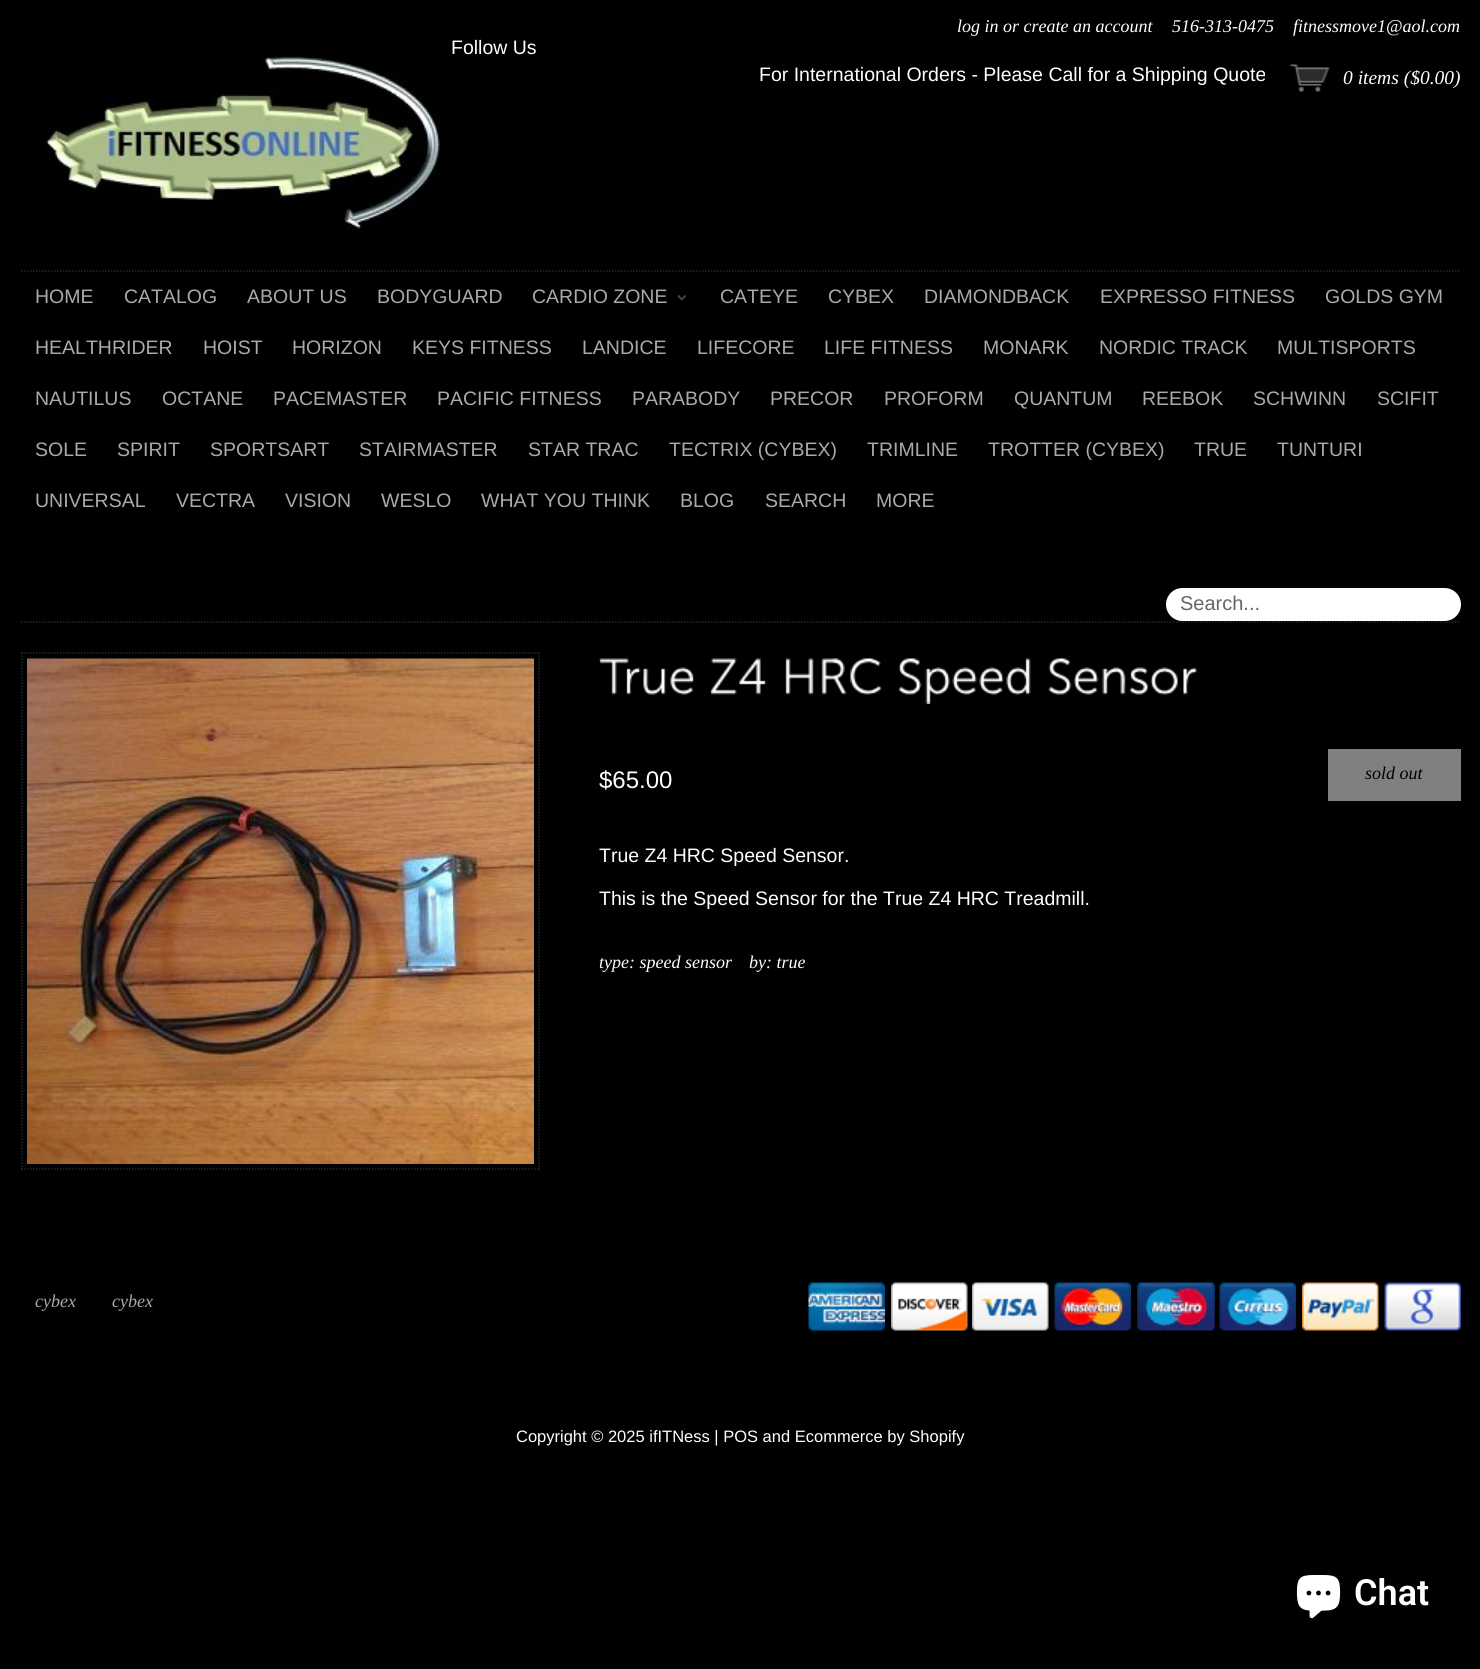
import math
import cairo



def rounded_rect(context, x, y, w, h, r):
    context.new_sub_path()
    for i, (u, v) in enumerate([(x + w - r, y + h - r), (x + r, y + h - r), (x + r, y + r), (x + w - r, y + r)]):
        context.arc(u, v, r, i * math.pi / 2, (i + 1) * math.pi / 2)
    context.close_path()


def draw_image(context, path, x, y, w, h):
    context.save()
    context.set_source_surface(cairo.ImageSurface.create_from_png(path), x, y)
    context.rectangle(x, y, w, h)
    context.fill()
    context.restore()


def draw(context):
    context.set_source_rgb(0, 0, 0)
    context.paint()
    draw_image(context, "images/1.png", 45, 54, 396, 175)
    draw_image(context, "images/2.png", 1289, 64, 41, 28)
    context.new_path()
    context.move_to(21, 271)
    context.line_to(1461, 271)
    context.set_source_rgb(38 / 255, 38 / 255, 38 / 255)
    context.set_line_width(1.5)
    context.set_dash([1.5, 1.5])
    context.stroke()
    context.new_path()
    context.move_to(21, 622)
    context.line_to(1461, 622)
    context.stroke()
    draw_image(context, "images/3.png", 678, 295, 8, 5)
    context.set_source_rgb(1, 1, 1)
    rounded_rect(context, 1166, 588, 295, 33, 16.5)
    context.fill()
    context.new_path()
    context.move_to(21, 653)
    context.line_to(540, 653)
    context.set_source_rgb(38 / 255, 38 / 255, 38 / 255)
    context.stroke()
    context.new_path()
    context.move_to(539, 652.5)
    context.line_to(539, 1170)
    context.stroke()
    context.new_path()
    context.move_to(21, 1169)
    context.line_to(540, 1169)
    context.stroke()
    context.new_path()
    context.move_to(22, 652.5)
    context.line_to(22, 1170)
    context.stroke()
    draw_image(context, "images/4.png", 27, 658, 507, 506)
    draw_image(context, "images/5.png", 599, 658, 95, 37)
    draw_image(context, "images/6.png", 710, 658, 56, 37)
    draw_image(context, "images/7.png", 785, 658, 97, 37)
    draw_image(context, "images/8.png", 898, 658, 133, 46)
    draw_image(context, "images/9.png", 1048, 658, 150, 37)
    context.set_source_rgb(128 / 255, 128 / 255, 128 / 255)
    context.rectangle(1328, 749, 133, 52)
    context.fill()
    draw_image(context, "images/10.png", 808, 1282, 77, 49)
    draw_image(context, "images/11.png", 891, 1282, 77, 49)
    draw_image(context, "images/12.png", 972, 1282, 77, 49)
    draw_image(context, "images/13.png", 1054, 1282, 77, 49)
    draw_image(context, "images/14.png", 1137, 1282, 78, 49)
    draw_image(context, "images/15.png", 1219, 1282, 77, 49)
    draw_image(context, "images/16.png", 1302, 1282, 77, 49)
    draw_image(context, "images/17.png", 1384, 1282, 77, 49)
    draw_image(context, "images/18.png", 1296, 1575, 45, 44)
    context.select_font_face("Liberation Serif", cairo.FontSlant.ITALIC)
    context.set_font_size(18)
    context.set_source_rgb(1, 1, 1)
    context.move_to(957, 32)
    context.show_text("log in or create an account")
    context.move_to(1172, 32)
    context.show_text("516-313-0475")
    context.move_to(1293, 32)
    context.show_text("fitnessmove1@aol.com")
    context.select_font_face("Liberation Sans")
    context.set_font_size(19.5)
    context.move_to(451, 54)
    context.show_text("Follow Us")
    context.move_to(759, 81)
    context.show_text("For International Orders - Please Call for a Shipping Quote")
    context.select_font_face("Liberation Serif", cairo.FontSlant.ITALIC)
    context.move_to(1343, 84)
    context.show_text("0 items ($0.00)")
    context.select_font_face("Liberation Sans")
    context.set_source_rgb(170 / 255, 170 / 255, 170 / 255)
    context.move_to(35, 303)
    context.show_text("HOME")
    context.move_to(124, 303)
    context.show_text("CATALOG")
    context.move_to(247, 303)
    context.show_text("ABOUT US")
    context.move_to(377, 303)
    context.show_text("BODYGUARD")
    context.move_to(532, 303)
    context.show_text("CARDIO ZONE")
    context.move_to(720, 303)
    context.show_text("CATEYE")
    context.move_to(828, 303)
    context.show_text("CYBEX")
    context.move_to(924, 303)
    context.show_text("DIAMONDBACK")
    context.move_to(1100, 303)
    context.show_text("EXPRESSO FITNESS")
    context.move_to(1325, 303)
    context.show_text("GOLDS GYM")
    context.move_to(35, 354)
    context.show_text("HEALTHRIDER")
    context.move_to(203, 354)
    context.show_text("HOIST")
    context.move_to(292, 354)
    context.show_text("HORIZON")
    context.move_to(412, 354)
    context.show_text("KEYS FITNESS")
    context.move_to(582, 354)
    context.show_text("LANDICE")
    context.move_to(697, 354)
    context.show_text("LIFECORE")
    context.move_to(824, 354)
    context.show_text("LIFE FITNESS")
    context.move_to(983, 354)
    context.show_text("MONARK")
    context.move_to(1099, 354)
    context.show_text("NORDIC TRACK")
    context.move_to(1277, 354)
    context.show_text("MULTISPORTS")
    context.move_to(35, 405)
    context.show_text("NAUTILUS")
    context.move_to(162, 405)
    context.show_text("OCTANE")
    context.move_to(273, 405)
    context.show_text("PACEMASTER")
    context.move_to(437, 405)
    context.show_text("PACIFIC FITNESS")
    context.move_to(632, 405)
    context.show_text("PARABODY")
    context.move_to(770, 405)
    context.show_text("PRECOR")
    context.move_to(884, 405)
    context.show_text("PROFORM")
    context.move_to(1014, 405)
    context.show_text("QUANTUM")
    context.move_to(1142, 405)
    context.show_text("REEBOK")
    context.move_to(1253, 405)
    context.show_text("SCHWINN")
    context.move_to(1377, 405)
    context.show_text("SCIFIT")
    context.move_to(35, 456)
    context.show_text("SOLE")
    context.move_to(117, 456)
    context.show_text("SPIRIT")
    context.move_to(210, 456)
    context.show_text("SPORTSART")
    context.move_to(359, 456)
    context.show_text("STAIRMASTER")
    context.move_to(528, 456)
    context.show_text("STAR TRAC")
    context.move_to(669, 456)
    context.show_text("TECTRIX (CYBEX)")
    context.move_to(867, 456)
    context.show_text("TRIMLINE")
    context.move_to(988, 456)
    context.show_text("TROTTER (CYBEX)")
    context.move_to(1194, 456)
    context.show_text("TRUE")
    context.move_to(1277, 456)
    context.show_text("TUNTURI")
    context.move_to(35, 507)
    context.show_text("UNIVERSAL")
    context.move_to(176, 507)
    context.show_text("VECTRA")
    context.move_to(285, 507)
    context.show_text("VISION")
    context.move_to(381, 507)
    context.show_text("WESLO")
    context.move_to(481, 507)
    context.show_text("WHAT YOU THINK")
    context.move_to(680, 507)
    context.show_text("BLOG")
    context.move_to(765, 507)
    context.show_text("SEARCH")
    context.move_to(876, 507)
    context.show_text("MORE")
    context.set_font_size(20)
    context.set_source_rgb(102 / 255, 102 / 255, 102 / 255)
    context.move_to(1180, 610)
    context.show_text("Search...")
    context.set_font_size(24)
    context.set_source_rgb(1, 1, 1)
    context.move_to(599, 788)
    context.show_text("$65.00")
    context.select_font_face("Liberation Serif", cairo.FontSlant.ITALIC)
    context.set_font_size(18)
    context.set_source_rgb(0, 0, 0)
    context.move_to(1365, 779)
    context.show_text("sold out")
    context.select_font_face("Liberation Sans")
    context.set_font_size(19.5)
    context.set_source_rgb(1, 1, 1)
    context.move_to(599, 862)
    context.show_text("True Z4 HRC Speed Sensor.")
    context.move_to(599, 905)
    context.show_text("This is the Speed Sensor for the True Z4 HRC Treadmill.")
    context.select_font_face("Liberation Serif", cairo.FontSlant.ITALIC)
    context.set_font_size(18)
    context.move_to(599, 968)
    context.show_text("type: speed sensor")
    context.move_to(749, 968)
    context.show_text("by: true")
    context.set_source_rgb(170 / 255, 170 / 255, 170 / 255)
    context.move_to(35, 1307)
    context.show_text("cybex")
    context.move_to(112, 1307)
    context.show_text("cybex")
    context.select_font_face("Liberation Sans")
    context.set_font_size(16.5)
    context.set_source_rgb(1, 1, 1)
    context.move_to(516, 1442)
    context.show_text("Copyright © 2025 ifITNess | POS and Ecommerce by Shopify")
    context.select_font_face("Roboto SemiBold")
    context.set_font_size(36)
    context.move_to(1354, 1605)
    context.show_text("Chat")


surface = cairo.ImageSurface(cairo.Format.RGB24, 1480, 1669)
context = cairo.Context(surface)
options = cairo.FontOptions()
options.set_hint_metrics(cairo.HintMetrics.OFF)
options.set_hint_style(cairo.HintStyle.NONE)
context.set_font_options(options)
context.set_miter_limit(4)
draw(context)
surface.write_to_png("out.png")
